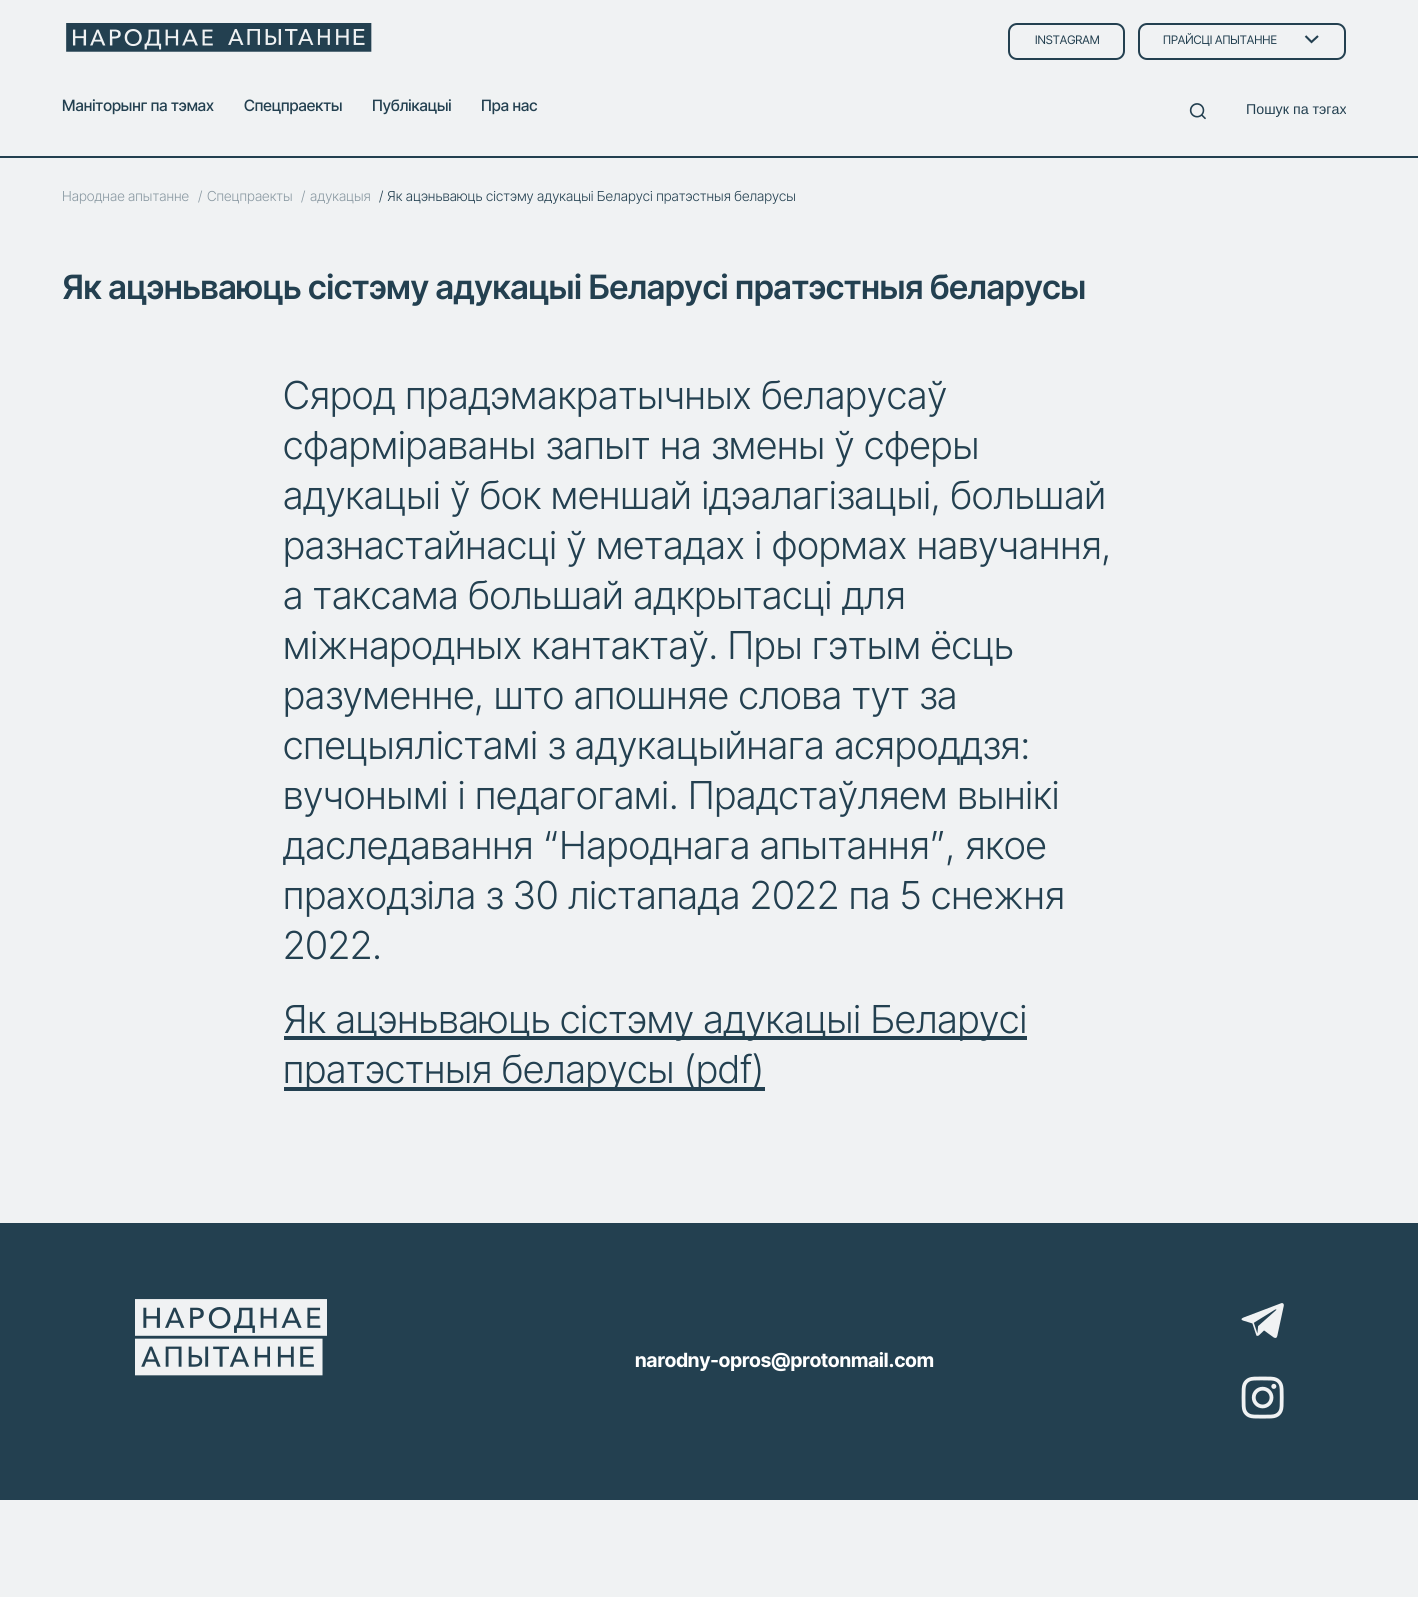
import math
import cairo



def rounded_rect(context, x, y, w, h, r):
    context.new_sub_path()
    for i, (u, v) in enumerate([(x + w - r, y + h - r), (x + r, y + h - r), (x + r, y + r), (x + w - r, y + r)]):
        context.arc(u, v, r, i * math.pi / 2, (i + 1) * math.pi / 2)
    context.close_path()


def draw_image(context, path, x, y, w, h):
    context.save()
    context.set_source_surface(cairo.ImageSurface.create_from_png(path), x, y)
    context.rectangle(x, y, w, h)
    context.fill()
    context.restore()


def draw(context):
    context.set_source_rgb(240 / 255, 242 / 255, 243 / 255)
    context.paint()
    context.set_source_rgb(35 / 255, 64 / 255, 80 / 255)
    context.rectangle(0, 156, 1418, 2)
    context.fill()
    draw_image(context, "images/1.png", 66, 23, 306, 29)
    rounded_rect(context, 1009, 24, 115, 35, 8)
    context.stroke()
    rounded_rect(context, 1139, 24, 206, 35, 8)
    context.stroke()
    context.new_path()
    context.move_to(1318, 36)
    context.line_to(1311.5, 42)
    context.line_to(1305.5, 36)
    context.set_line_width(2.1)
    context.stroke()
    draw_image(context, "images/2.png", 1189, 103, 17, 17)
    context.rectangle(284, 1036, 743, 4)
    context.fill()
    context.rectangle(284, 1087, 481, 4)
    context.fill()
    context.rectangle(0, 1223, 1418, 277)
    context.fill()
    draw_image(context, "images/3.png", 135, 1299, 192, 77)
    draw_image(context, "images/4.png", 1241, 1303, 43, 35)
    draw_image(context, "images/5.png", 1241, 1376, 43, 43)
    context.select_font_face("Inter Tight Medium")
    context.set_font_size(15.6)
    context.move_to(62, 111)
    context.show_text("Маніторынг па тэмах")
    context.move_to(244, 111)
    context.show_text("Спецпраекты")
    context.move_to(372, 111)
    context.show_text("Публікацыі")
    context.move_to(481, 111)
    context.show_text("Пра нас")
    context.select_font_face("Inter Tight")
    context.set_font_size(11.75)
    context.move_to(1035, 44)
    context.show_text("INSTAGRAM")
    context.move_to(1163, 44)
    context.show_text("ПРАЙСЦІ АПЫТАННЕ")
    context.select_font_face("Liberation Sans")
    context.set_font_size(14.25)
    context.move_to(1246, 114)
    context.show_text("Пошук па тэгах")
    context.select_font_face("Inter Tight Light")
    context.set_font_size(13.75)
    context.set_source_rgb(138 / 255, 153 / 255, 162 / 255)
    context.move_to(62, 201)
    context.show_text("Народнае апытанне")
    context.move_to(198, 201)
    context.show_text("/")
    context.move_to(207, 201)
    context.show_text("Спецпраекты")
    context.move_to(301, 201)
    context.show_text("/")
    context.move_to(310, 201)
    context.show_text("адукацыя")
    context.set_source_rgb(35 / 255, 64 / 255, 80 / 255)
    context.move_to(379, 201)
    context.show_text("/")
    context.move_to(387, 201)
    context.show_text("Як ацэньваюць сістэму адукацыі Беларусі пратэстныя беларусы")
    context.select_font_face("Inter Tight SemiBold")
    context.set_font_size(33.5)
    context.move_to(62, 299)
    context.show_text("Як ацэньваюць сістэму адукацыі Беларусі пратэстныя беларусы")
    context.select_font_face("Inter Tight Light")
    context.set_font_size(38.5)
    context.move_to(283, 409)
    context.show_text("Сярод прадэмакратычных беларусаў")
    context.move_to(283, 459)
    context.show_text("сфарміраваны запыт на змены ў сферы")
    context.move_to(283, 509)
    context.show_text("адукацыі ў бок меншай ідэалагізацыі, большай")
    context.move_to(283, 559)
    context.show_text("разнастайнасці ў метадах і формах навучання,")
    context.move_to(283, 609)
    context.show_text("а таксама большай адкрытасці для")
    context.move_to(283, 659)
    context.show_text("міжнародных кантактаў. Пры гэтым ёсць")
    context.move_to(283, 709)
    context.show_text("разуменне, што апошняе слова тут за")
    context.move_to(283, 759)
    context.show_text("спецыялістамі з адукацыйнага асяроддзя:")
    context.move_to(283, 809)
    context.show_text("вучонымі і педагогамі. Прадстаўляем вынікі")
    context.move_to(283, 859)
    context.show_text("даследавання “Народнага апытання”, якое")
    context.move_to(283, 909)
    context.show_text("праходзіла з 30 лістапада 2022 па 5 снежня")
    context.move_to(283, 959)
    context.show_text("2022.")
    context.move_to(283, 1033)
    context.show_text("Як ацэньваюць сістэму адукацыі Беларусі")
    context.move_to(283, 1083)
    context.show_text("пратэстныя беларусы (pdf)")
    context.select_font_face("Inter Tight", cairo.FontSlant.NORMAL, cairo.FontWeight.BOLD)
    context.set_font_size(19.6)
    context.set_source_rgb(1, 1, 1)
    context.move_to(635, 1367)
    context.show_text("narodny-opros@protonmail.com")


surface = cairo.ImageSurface(cairo.Format.RGB24, 1418, 1597)
context = cairo.Context(surface)
options = cairo.FontOptions()
options.set_hint_metrics(cairo.HintMetrics.OFF)
options.set_hint_style(cairo.HintStyle.NONE)
context.set_font_options(options)
context.set_miter_limit(4)
draw(context)
surface.write_to_png("out.png")
